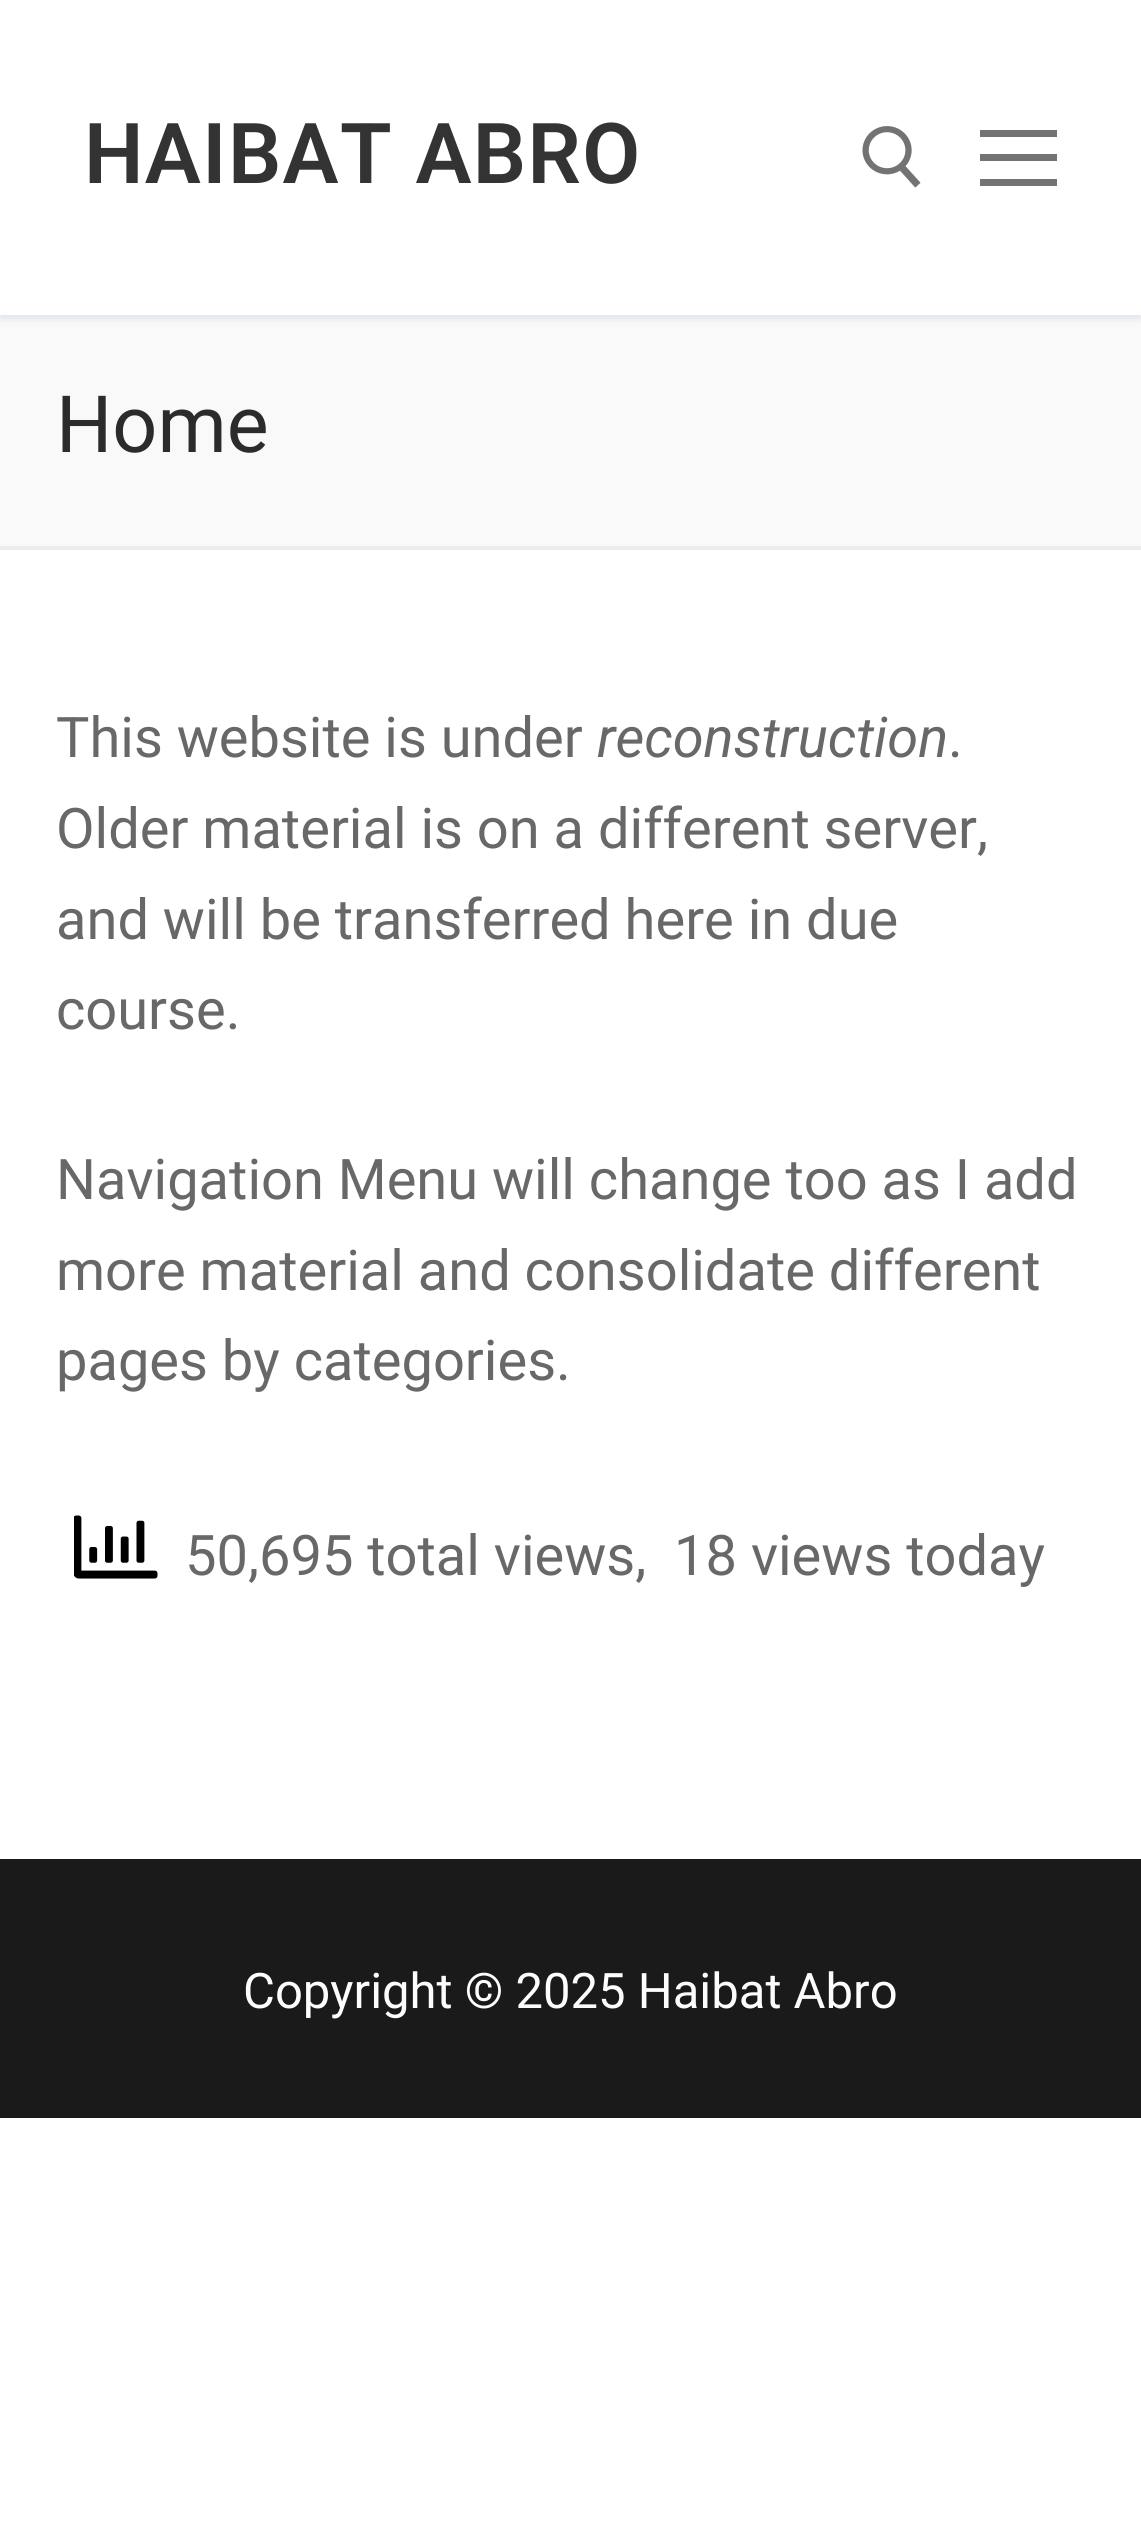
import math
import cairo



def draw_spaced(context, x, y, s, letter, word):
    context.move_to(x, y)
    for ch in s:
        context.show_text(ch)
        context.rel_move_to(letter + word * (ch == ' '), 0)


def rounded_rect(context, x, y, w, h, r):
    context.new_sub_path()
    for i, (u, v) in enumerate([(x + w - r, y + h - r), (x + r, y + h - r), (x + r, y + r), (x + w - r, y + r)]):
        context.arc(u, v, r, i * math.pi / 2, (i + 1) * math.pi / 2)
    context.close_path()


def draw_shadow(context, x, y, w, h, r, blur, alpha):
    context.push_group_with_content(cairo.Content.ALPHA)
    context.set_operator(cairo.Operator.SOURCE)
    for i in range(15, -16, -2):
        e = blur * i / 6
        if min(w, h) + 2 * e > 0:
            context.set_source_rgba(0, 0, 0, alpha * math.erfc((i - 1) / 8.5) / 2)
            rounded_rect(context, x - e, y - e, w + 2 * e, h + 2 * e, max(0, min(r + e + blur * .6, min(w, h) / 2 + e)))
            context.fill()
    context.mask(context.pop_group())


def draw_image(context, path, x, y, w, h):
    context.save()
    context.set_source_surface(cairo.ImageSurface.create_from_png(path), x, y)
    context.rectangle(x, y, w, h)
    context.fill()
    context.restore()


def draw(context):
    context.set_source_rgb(1, 1, 1)
    context.paint()
    context.set_source_rgb(249 / 255, 249 / 255, 249 / 255)
    context.rectangle(0, 315, 1141, 231)
    context.fill()
    context.save()
    context.rectangle(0, 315, 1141, 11)
    context.clip()
    context.set_source_rgb(225 / 255, 229 / 255, 234 / 255)
    draw_shadow(context, 0, 4, 1141, 315, 0, 3.5, 1)
    context.restore()
    draw_image(context, "images/1.png", 862, 126, 59, 62)
    context.set_source_rgb(115 / 255, 115 / 255, 115 / 255)
    context.rectangle(980, 154, 77, 7)
    context.fill()
    context.rectangle(980, 130, 77, 7)
    context.fill()
    context.rectangle(980, 179, 77, 7)
    context.fill()
    context.set_source_rgb(234 / 255, 236 / 255, 238 / 255)
    context.rectangle(0, 546, 1141, 4)
    context.fill()
    draw_image(context, "images/2.png", 74, 1515, 84, 64)
    context.set_source_rgb(26 / 255, 26 / 255, 26 / 255)
    context.rectangle(0, 1859, 1141, 259)
    context.fill()
    context.select_font_face("Roboto SemiBold")
    context.set_font_size(84)
    context.set_source_rgb(51 / 255, 51 / 255, 51 / 255)
    draw_spaced(context, 84, 183, "HAIBAT ABRO", 1.4, 0)
    context.select_font_face("Roboto")
    context.set_font_size(79)
    context.set_source_rgb(43 / 255, 43 / 255, 43 / 255)
    context.move_to(56, 452)
    context.show_text("Home")
    context.set_font_size(56)
    context.set_source_rgb(104 / 255, 104 / 255, 104 / 255)
    context.move_to(56, 757)
    context.show_text("This website is under")
    context.select_font_face("Roboto", cairo.FontSlant.ITALIC)
    context.move_to(597, 757)
    context.show_text("reconstruction")
    context.select_font_face("Roboto")
    context.move_to(948, 757)
    context.show_text(".")
    context.move_to(56, 848)
    context.show_text("Older material is on a different server,")
    context.move_to(56, 939)
    context.show_text("and will be transferred here in due")
    context.move_to(56, 1029)
    context.show_text("course.")
    context.move_to(56, 1199)
    context.show_text("Navigation Menu will change too as I add")
    context.move_to(56, 1290)
    context.show_text("more material and consolidate different")
    context.move_to(56, 1380)
    context.show_text("pages by categories.")
    context.move_to(185, 1575)
    context.show_text("50,695 total views,  18 views today")
    context.set_font_size(49)
    context.set_source_rgb(253 / 255, 253 / 255, 253 / 255)
    context.move_to(243, 2008)
    context.show_text("Copyright © 2025 Haibat Abro")


surface = cairo.ImageSurface(cairo.Format.RGB24, 1141, 2542)
context = cairo.Context(surface)
options = cairo.FontOptions()
options.set_hint_metrics(cairo.HintMetrics.OFF)
options.set_hint_style(cairo.HintStyle.NONE)
context.set_font_options(options)
context.set_miter_limit(4)
draw(context)
surface.write_to_png("out.png")
